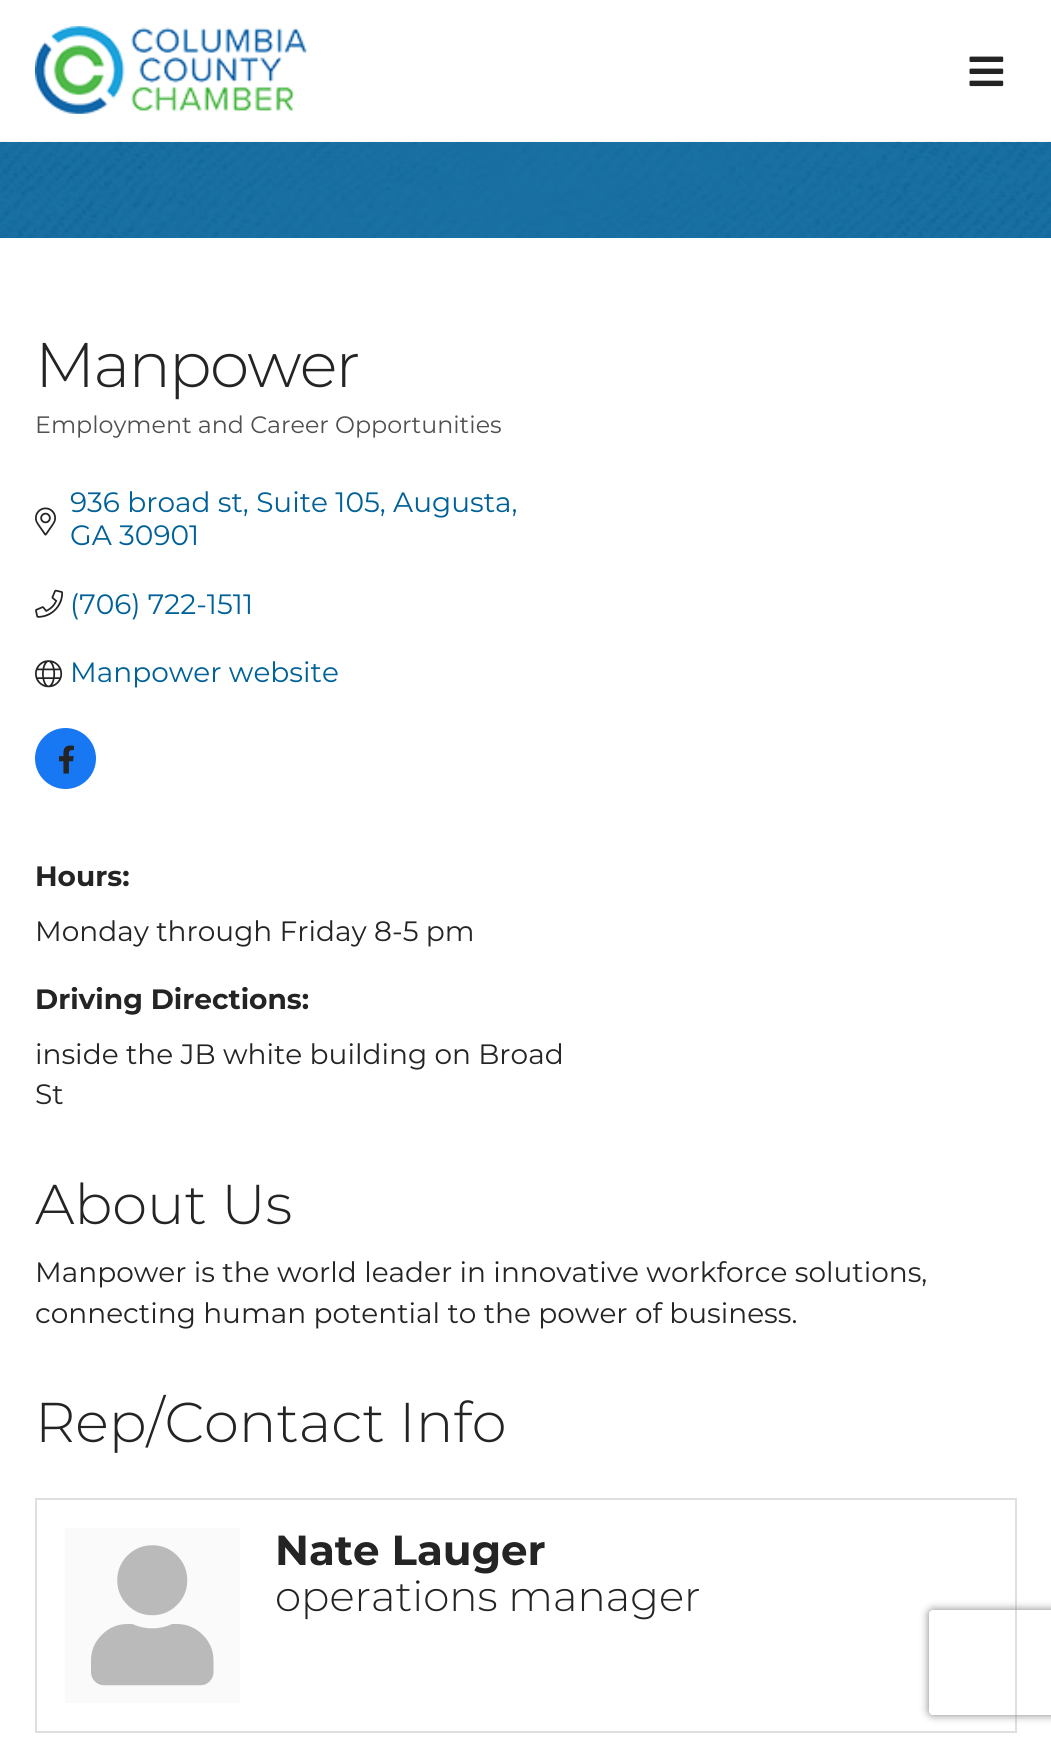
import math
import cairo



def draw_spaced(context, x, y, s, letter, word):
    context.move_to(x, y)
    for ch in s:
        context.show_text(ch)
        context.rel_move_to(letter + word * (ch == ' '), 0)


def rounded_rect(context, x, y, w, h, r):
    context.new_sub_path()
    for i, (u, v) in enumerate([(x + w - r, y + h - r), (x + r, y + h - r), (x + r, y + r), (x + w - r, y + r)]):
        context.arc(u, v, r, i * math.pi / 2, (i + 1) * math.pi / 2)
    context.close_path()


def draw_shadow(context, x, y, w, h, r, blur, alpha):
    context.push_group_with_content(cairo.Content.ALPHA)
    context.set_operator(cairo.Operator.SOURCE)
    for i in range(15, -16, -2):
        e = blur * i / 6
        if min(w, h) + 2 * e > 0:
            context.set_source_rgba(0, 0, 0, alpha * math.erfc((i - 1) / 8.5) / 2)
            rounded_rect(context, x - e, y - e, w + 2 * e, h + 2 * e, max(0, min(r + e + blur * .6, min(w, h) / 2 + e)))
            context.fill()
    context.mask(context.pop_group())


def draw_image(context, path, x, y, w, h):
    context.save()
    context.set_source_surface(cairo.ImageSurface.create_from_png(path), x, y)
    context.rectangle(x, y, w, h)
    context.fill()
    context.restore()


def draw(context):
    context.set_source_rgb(1, 1, 1)
    context.paint()
    draw_image(context, "images/1.png", 35, 26, 272, 88)
    draw_image(context, "images/2.png", 969, 56, 35, 31)
    draw_image(context, "images/3.png", 0, 141, 1051, 97)
    draw_image(context, "images/4.png", 35, 507, 21, 29)
    draw_image(context, "images/5.png", 35, 589, 28, 29)
    draw_image(context, "images/6.png", 35, 660, 28, 28)
    context.set_source_rgb(24 / 255, 119 / 255, 242 / 255)
    context.arc(65.5, 758.5, 30.5, 0, 2 * math.pi)
    context.fill()
    draw_image(context, "images/7.png", 59, 745, 15, 29)
    context.rectangle(36, 1499, 980, 233)
    context.set_source_rgb(223 / 255, 223 / 255, 223 / 255)
    context.stroke()
    context.set_source_rgb(250 / 255, 250 / 255, 250 / 255)
    context.rectangle(65, 1528, 175, 175)
    context.fill()
    draw_image(context, "images/8.png", 91, 1545, 123, 141)
    context.save()
    context.set_fill_rule(cairo.FillRule.EVEN_ODD)
    context.new_path()
    context.move_to(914, 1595)
    context.line_to(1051, 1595)
    context.line_to(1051, 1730)
    context.line_to(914, 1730)
    context.close_path()
    context.move_to(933, 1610)
    context.line_to(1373, 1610)
    context.curve_to(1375, 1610, 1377, 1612, 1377, 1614)
    context.line_to(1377, 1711)
    context.curve_to(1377, 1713, 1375, 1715, 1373, 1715)
    context.line_to(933, 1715)
    context.curve_to(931, 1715, 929, 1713, 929, 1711)
    context.line_to(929, 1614)
    context.curve_to(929, 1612, 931, 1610, 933, 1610)
    context.close_path()
    context.clip()
    context.set_source_rgb(128 / 255, 128 / 255, 128 / 255)
    draw_shadow(context, 929, 1610, 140, 105, 4, 4.5, 1)
    context.restore()
    context.select_font_face("Montserrat Light")
    context.set_font_size(63)
    context.set_source_rgb(36 / 255, 36 / 255, 36 / 255)
    draw_spaced(context, 35, 387, "Manpower", -1.75, 0)
    context.select_font_face("Montserrat")
    context.set_font_size(23.75)
    context.set_source_rgb(80 / 255, 80 / 255, 80 / 255)
    context.move_to(35, 433)
    context.show_text("Employment and Career Opportunities")
    context.set_font_size(28)
    context.set_source_rgb(0, 96 / 255, 152 / 255)
    context.move_to(70, 512)
    context.show_text("936 broad st, Suite 105, Augusta,")
    context.move_to(70, 545)
    context.show_text("GA 30901")
    context.move_to(70, 614)
    context.show_text("(706) 722-1511")
    context.move_to(70, 682)
    context.show_text("Manpower website")
    context.select_font_face("Montserrat", cairo.FontSlant.NORMAL, cairo.FontWeight.BOLD)
    context.set_source_rgb(36 / 255, 36 / 255, 36 / 255)
    context.move_to(35, 886)
    context.show_text("Hours:")
    context.select_font_face("Montserrat")
    context.move_to(35, 941)
    context.show_text("Monday through Friday 8-5 pm")
    context.select_font_face("Montserrat", cairo.FontSlant.NORMAL, cairo.FontWeight.BOLD)
    context.move_to(35, 1009)
    context.show_text("Driving Directions:")
    context.select_font_face("Montserrat")
    context.move_to(35, 1064)
    context.show_text("inside the JB white building on Broad")
    context.move_to(35, 1104)
    context.show_text("St")
    context.select_font_face("Montserrat Light")
    context.set_font_size(56)
    context.move_to(35, 1224)
    context.show_text("About Us")
    context.select_font_face("Montserrat")
    context.set_font_size(28)
    context.move_to(35, 1282)
    context.show_text("Manpower is the world leader in innovative workforce solutions,")
    context.move_to(35, 1323)
    context.show_text("connecting human potential to the power of business.")
    context.select_font_face("Montserrat Light")
    context.set_font_size(56)
    context.move_to(35, 1442)
    context.show_text("Rep/Contact Info")
    context.select_font_face("Montserrat", cairo.FontSlant.NORMAL, cairo.FontWeight.BOLD)
    context.set_font_size(42)
    context.move_to(275, 1565)
    context.show_text("Nate Lauger")
    context.select_font_face("Montserrat Light")
    context.move_to(275, 1611)
    context.show_text("operations manager")


surface = cairo.ImageSurface(cairo.Format.RGB24, 1051, 1738)
context = cairo.Context(surface)
options = cairo.FontOptions()
options.set_hint_metrics(cairo.HintMetrics.OFF)
options.set_hint_style(cairo.HintStyle.NONE)
context.set_font_options(options)
context.set_miter_limit(4)
draw(context)
surface.write_to_png("out.png")
